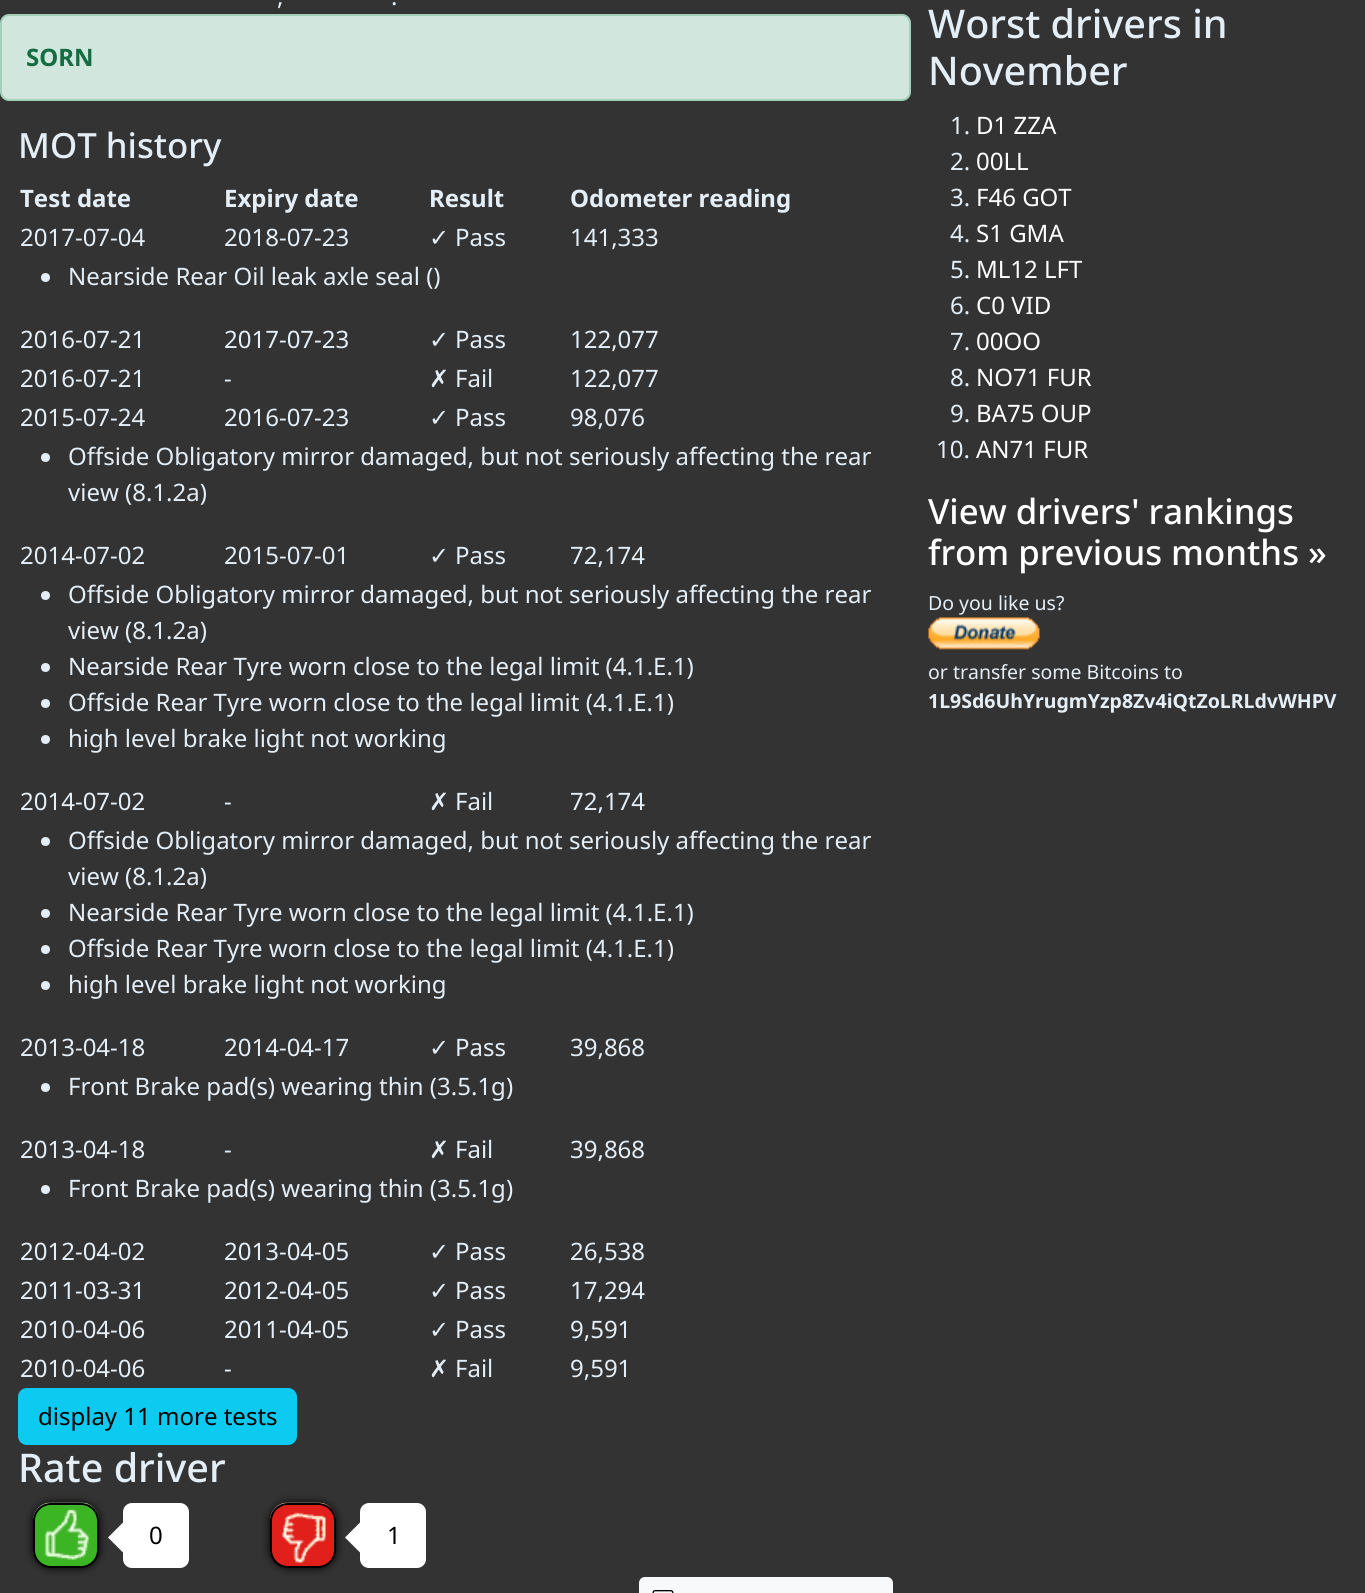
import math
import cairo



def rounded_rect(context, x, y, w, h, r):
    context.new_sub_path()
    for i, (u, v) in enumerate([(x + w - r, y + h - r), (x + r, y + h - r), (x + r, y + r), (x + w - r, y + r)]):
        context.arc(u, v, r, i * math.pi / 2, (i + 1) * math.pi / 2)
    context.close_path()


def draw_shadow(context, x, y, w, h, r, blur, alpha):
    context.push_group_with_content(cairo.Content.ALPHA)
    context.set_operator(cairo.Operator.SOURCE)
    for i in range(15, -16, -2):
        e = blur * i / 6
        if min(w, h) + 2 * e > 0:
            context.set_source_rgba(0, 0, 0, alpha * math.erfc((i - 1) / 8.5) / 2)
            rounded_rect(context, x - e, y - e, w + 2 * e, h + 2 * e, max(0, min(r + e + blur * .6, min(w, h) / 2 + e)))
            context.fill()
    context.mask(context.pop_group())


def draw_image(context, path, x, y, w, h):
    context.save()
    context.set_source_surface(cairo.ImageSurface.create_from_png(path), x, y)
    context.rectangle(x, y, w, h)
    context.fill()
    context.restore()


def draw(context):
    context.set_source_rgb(51 / 255, 51 / 255, 51 / 255)
    context.paint()
    context.set_source_rgb(209 / 255, 231 / 255, 221 / 255)
    rounded_rect(context, 1, 15, 909, 85, 8)
    context.fill_preserve()
    context.set_source_rgb(163 / 255, 207 / 255, 187 / 255)
    context.stroke()
    context.set_source_rgb(228 / 255, 238 / 255, 246 / 255)
    context.arc(45.5, 277.5, 4.5, 0, 2 * math.pi)
    context.fill()
    context.arc(45.5, 457.5, 4.5, 0, 2 * math.pi)
    context.fill()
    context.arc(45.5, 595.5, 4.5, 0, 2 * math.pi)
    context.fill()
    context.arc(45.5, 667.5, 4.5, 0, 2 * math.pi)
    context.fill()
    context.arc(45.5, 703.5, 4.5, 0, 2 * math.pi)
    context.fill()
    context.arc(45.5, 739.5, 4.5, 0, 2 * math.pi)
    context.fill()
    context.arc(45.5, 841.5, 4.5, 0, 2 * math.pi)
    context.fill()
    context.arc(45.5, 913.5, 4.5, 0, 2 * math.pi)
    context.fill()
    context.arc(45.5, 949.5, 4.5, 0, 2 * math.pi)
    context.fill()
    context.arc(45.5, 985.5, 4.5, 0, 2 * math.pi)
    context.fill()
    context.arc(45.5, 1087.5, 4.5, 0, 2 * math.pi)
    context.fill()
    context.arc(45.5, 1189.5, 4.5, 0, 2 * math.pi)
    context.fill()
    context.set_source_rgb(13 / 255, 202 / 255, 240 / 255)
    rounded_rect(context, 19, 1389, 277, 55, 8)
    context.fill_preserve()
    context.stroke()
    context.set_source_rgb(0, 0, 0)
    draw_shadow(context, 33, 1503, 66, 65, 18, 4.5, 1)
    draw_image(context, "images/1.png", 33, 1502, 66, 64)
    rounded_rect(context, 34, 1504, 64, 63, 17)
    context.set_source_rgb(0, 0, 0)
    context.stroke()
    context.set_source_rgb(1, 1, 1)
    context.new_path()
    context.move_to(123, 1522.5)
    context.line_to(123, 1552.5)
    context.line_to(108, 1537.5)
    context.close_path()
    context.fill()
    rounded_rect(context, 123, 1503, 66, 65, 9)
    context.fill()
    context.set_source_rgb(0, 0, 0)
    draw_shadow(context, 270, 1503, 66, 65, 18, 4.5, 1)
    draw_image(context, "images/2.png", 270, 1502, 66, 64)
    rounded_rect(context, 271, 1504, 64, 63, 17)
    context.set_source_rgb(0, 0, 0)
    context.stroke()
    context.set_source_rgb(1, 1, 1)
    context.new_path()
    context.move_to(360, 1522.5)
    context.line_to(360, 1552.5)
    context.line_to(345, 1537.5)
    context.close_path()
    context.fill()
    rounded_rect(context, 360, 1503, 66, 65, 9)
    context.fill()
    context.set_source_rgb(248 / 255, 249 / 255, 250 / 255)
    rounded_rect(context, 640, 1578, 252, 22, 5)
    context.fill_preserve()
    context.stroke()
    draw_image(context, "images/3.png", 652, 1590, 22, 3)
    draw_image(context, "images/4.png", 928, 617, 112, 33)
    context.select_font_face("Noto Sans")
    context.set_font_size(24)
    context.set_source_rgb(228 / 255, 238 / 255, 246 / 255)
    context.move_to(277, 5)
    context.show_text(",")
    context.move_to(391, 5)
    context.show_text(".")
    context.select_font_face("Noto Sans", cairo.FontSlant.NORMAL, cairo.FontWeight.BOLD)
    context.set_source_rgb(20 / 255, 108 / 255, 67 / 255)
    context.move_to(26, 66)
    context.show_text("SORN")
    context.select_font_face("Noto Sans Medium")
    context.set_font_size(34.75)
    context.set_source_rgb(228 / 255, 238 / 255, 246 / 255)
    context.move_to(18, 158)
    context.show_text("MOT history")
    context.select_font_face("Noto Sans", cairo.FontSlant.NORMAL, cairo.FontWeight.BOLD)
    context.set_font_size(24)
    context.move_to(20, 207)
    context.show_text("Test date")
    context.move_to(224, 207)
    context.show_text("Expiry date")
    context.move_to(429, 207)
    context.show_text("Result")
    context.move_to(570, 207)
    context.show_text("Odometer reading")
    context.select_font_face("Noto Sans")
    context.move_to(20, 246)
    context.show_text("2017-07-04")
    context.move_to(224, 246)
    context.show_text("2018-07-23")
    context.select_font_face("DejaVu Sans")
    context.move_to(429, 246)
    context.show_text("✓")
    context.select_font_face("Noto Sans")
    context.move_to(455, 246)
    context.show_text("Pass")
    context.move_to(570, 246)
    context.show_text("141,333")
    context.move_to(68, 285)
    context.show_text("Nearside Rear Oil leak axle seal ()")
    context.move_to(20, 348)
    context.show_text("2016-07-21")
    context.move_to(224, 348)
    context.show_text("2017-07-23")
    context.select_font_face("DejaVu Sans")
    context.move_to(429, 348)
    context.show_text("✓")
    context.select_font_face("Noto Sans")
    context.move_to(455, 348)
    context.show_text("Pass")
    context.move_to(570, 348)
    context.show_text("122,077")
    context.move_to(20, 387)
    context.show_text("2016-07-21")
    context.move_to(224, 387)
    context.show_text("-")
    context.select_font_face("DejaVu Sans")
    context.move_to(429, 387)
    context.show_text("✗")
    context.select_font_face("Noto Sans")
    context.move_to(455, 387)
    context.show_text("Fail")
    context.move_to(570, 387)
    context.show_text("122,077")
    context.move_to(20, 426)
    context.show_text("2015-07-24")
    context.move_to(224, 426)
    context.show_text("2016-07-23")
    context.select_font_face("DejaVu Sans")
    context.move_to(429, 426)
    context.show_text("✓")
    context.select_font_face("Noto Sans")
    context.move_to(455, 426)
    context.show_text("Pass")
    context.move_to(570, 426)
    context.show_text("98,076")
    context.move_to(68, 465)
    context.show_text("Offside Obligatory mirror damaged, but not seriously affecting the rear")
    context.move_to(68, 501)
    context.show_text("view (8.1.2a)")
    context.move_to(20, 564)
    context.show_text("2014-07-02")
    context.move_to(224, 564)
    context.show_text("2015-07-01")
    context.select_font_face("DejaVu Sans")
    context.move_to(429, 564)
    context.show_text("✓")
    context.select_font_face("Noto Sans")
    context.move_to(455, 564)
    context.show_text("Pass")
    context.move_to(570, 564)
    context.show_text("72,174")
    context.move_to(68, 603)
    context.show_text("Offside Obligatory mirror damaged, but not seriously affecting the rear")
    context.move_to(68, 639)
    context.show_text("view (8.1.2a)")
    context.move_to(68, 675)
    context.show_text("Nearside Rear Tyre worn close to the legal limit (4.1.E.1)")
    context.move_to(68, 711)
    context.show_text("Offside Rear Tyre worn close to the legal limit (4.1.E.1)")
    context.move_to(68, 747)
    context.show_text("high level brake light not working")
    context.move_to(20, 810)
    context.show_text("2014-07-02")
    context.move_to(224, 810)
    context.show_text("-")
    context.select_font_face("DejaVu Sans")
    context.move_to(429, 810)
    context.show_text("✗")
    context.select_font_face("Noto Sans")
    context.move_to(455, 810)
    context.show_text("Fail")
    context.move_to(570, 810)
    context.show_text("72,174")
    context.move_to(68, 849)
    context.show_text("Offside Obligatory mirror damaged, but not seriously affecting the rear")
    context.move_to(68, 885)
    context.show_text("view (8.1.2a)")
    context.move_to(68, 921)
    context.show_text("Nearside Rear Tyre worn close to the legal limit (4.1.E.1)")
    context.move_to(68, 957)
    context.show_text("Offside Rear Tyre worn close to the legal limit (4.1.E.1)")
    context.move_to(68, 993)
    context.show_text("high level brake light not working")
    context.move_to(20, 1056)
    context.show_text("2013-04-18")
    context.move_to(224, 1056)
    context.show_text("2014-04-17")
    context.select_font_face("DejaVu Sans")
    context.move_to(429, 1056)
    context.show_text("✓")
    context.select_font_face("Noto Sans")
    context.move_to(455, 1056)
    context.show_text("Pass")
    context.move_to(570, 1056)
    context.show_text("39,868")
    context.move_to(68, 1095)
    context.show_text("Front Brake pad(s) wearing thin (3.5.1g)")
    context.move_to(20, 1158)
    context.show_text("2013-04-18")
    context.move_to(224, 1158)
    context.show_text("-")
    context.select_font_face("DejaVu Sans")
    context.move_to(429, 1158)
    context.show_text("✗")
    context.select_font_face("Noto Sans")
    context.move_to(455, 1158)
    context.show_text("Fail")
    context.move_to(570, 1158)
    context.show_text("39,868")
    context.move_to(68, 1197)
    context.show_text("Front Brake pad(s) wearing thin (3.5.1g)")
    context.move_to(20, 1260)
    context.show_text("2012-04-02")
    context.move_to(224, 1260)
    context.show_text("2013-04-05")
    context.select_font_face("DejaVu Sans")
    context.move_to(429, 1260)
    context.show_text("✓")
    context.select_font_face("Noto Sans")
    context.move_to(455, 1260)
    context.show_text("Pass")
    context.move_to(570, 1260)
    context.show_text("26,538")
    context.move_to(20, 1299)
    context.show_text("2011-03-31")
    context.move_to(224, 1299)
    context.show_text("2012-04-05")
    context.select_font_face("DejaVu Sans")
    context.move_to(429, 1299)
    context.show_text("✓")
    context.select_font_face("Noto Sans")
    context.move_to(455, 1299)
    context.show_text("Pass")
    context.move_to(570, 1299)
    context.show_text("17,294")
    context.move_to(20, 1338)
    context.show_text("2010-04-06")
    context.move_to(224, 1338)
    context.show_text("2011-04-05")
    context.select_font_face("DejaVu Sans")
    context.move_to(429, 1338)
    context.show_text("✓")
    context.select_font_face("Noto Sans")
    context.move_to(455, 1338)
    context.show_text("Pass")
    context.move_to(570, 1338)
    context.show_text("9,591")
    context.move_to(20, 1377)
    context.show_text("2010-04-06")
    context.move_to(224, 1377)
    context.show_text("-")
    context.select_font_face("DejaVu Sans")
    context.move_to(429, 1377)
    context.show_text("✗")
    context.select_font_face("Noto Sans")
    context.move_to(455, 1377)
    context.show_text("Fail")
    context.move_to(570, 1377)
    context.show_text("9,591")
    context.set_source_rgb(0, 0, 0)
    context.move_to(38, 1425)
    context.show_text("display 11 more tests")
    context.select_font_face("Noto Sans Medium")
    context.set_font_size(39.5)
    context.set_source_rgb(228 / 255, 238 / 255, 246 / 255)
    context.move_to(18, 1482)
    context.show_text("Rate driver")
    context.select_font_face("Noto Sans")
    context.set_font_size(24)
    context.set_source_rgb(0, 0, 0)
    context.move_to(149, 1544)
    context.show_text("0")
    context.move_to(387, 1544)
    context.show_text("1")
    context.select_font_face("Noto Sans Medium")
    context.set_font_size(39.5)
    context.set_source_rgb(228 / 255, 238 / 255, 246 / 255)
    context.move_to(928, 38)
    context.show_text("Worst drivers in")
    context.move_to(928, 85)
    context.show_text("November")
    context.select_font_face("Noto Sans")
    context.set_font_size(24)
    context.move_to(950, 134)
    context.show_text("1.")
    context.set_source_rgb(1, 1, 1)
    context.move_to(976, 134)
    context.show_text("D1 ZZA")
    context.set_source_rgb(228 / 255, 238 / 255, 246 / 255)
    context.move_to(950, 170)
    context.show_text("2.")
    context.set_source_rgb(1, 1, 1)
    context.move_to(976, 170)
    context.show_text("00LL")
    context.set_source_rgb(228 / 255, 238 / 255, 246 / 255)
    context.move_to(950, 206)
    context.show_text("3.")
    context.set_source_rgb(1, 1, 1)
    context.move_to(976, 206)
    context.show_text("F46 GOT")
    context.set_source_rgb(228 / 255, 238 / 255, 246 / 255)
    context.move_to(950, 242)
    context.show_text("4.")
    context.set_source_rgb(1, 1, 1)
    context.move_to(976, 242)
    context.show_text("S1 GMA")
    context.set_source_rgb(228 / 255, 238 / 255, 246 / 255)
    context.move_to(950, 278)
    context.show_text("5.")
    context.set_source_rgb(1, 1, 1)
    context.move_to(976, 278)
    context.show_text("ML12 LFT")
    context.set_source_rgb(228 / 255, 238 / 255, 246 / 255)
    context.move_to(950, 314)
    context.show_text("6.")
    context.set_source_rgb(1, 1, 1)
    context.move_to(976, 314)
    context.show_text("C0 VID")
    context.set_source_rgb(228 / 255, 238 / 255, 246 / 255)
    context.move_to(950, 350)
    context.show_text("7.")
    context.set_source_rgb(1, 1, 1)
    context.move_to(976, 350)
    context.show_text("00OO")
    context.set_source_rgb(228 / 255, 238 / 255, 246 / 255)
    context.move_to(950, 386)
    context.show_text("8.")
    context.set_source_rgb(1, 1, 1)
    context.move_to(976, 386)
    context.show_text("NO71 FUR")
    context.set_source_rgb(228 / 255, 238 / 255, 246 / 255)
    context.move_to(950, 422)
    context.show_text("9.")
    context.set_source_rgb(1, 1, 1)
    context.move_to(976, 422)
    context.show_text("BA75 OUP")
    context.set_source_rgb(228 / 255, 238 / 255, 246 / 255)
    context.move_to(936, 458)
    context.show_text("10.")
    context.set_source_rgb(1, 1, 1)
    context.move_to(976, 458)
    context.show_text("AN71 FUR")
    context.select_font_face("Noto Sans Medium")
    context.set_font_size(34.75)
    context.move_to(928, 524)
    context.show_text("View drivers' rankings")
    context.move_to(928, 565)
    context.show_text("from previous months »")
    context.select_font_face("Noto Sans")
    context.set_font_size(19.5)
    context.set_source_rgb(228 / 255, 238 / 255, 246 / 255)
    context.move_to(928, 610)
    context.show_text("Do you like us?")
    context.move_to(928, 679)
    context.show_text("or transfer some Bitcoins to")
    context.select_font_face("Noto Sans", cairo.FontSlant.NORMAL, cairo.FontWeight.BOLD)
    context.move_to(928, 708)
    context.show_text("1L9Sd6UhYrugmYzp8Zv4iQtZoLRLdvWHPV")


surface = cairo.ImageSurface(cairo.Format.RGB24, 1365, 1593)
context = cairo.Context(surface)
options = cairo.FontOptions()
options.set_hint_metrics(cairo.HintMetrics.OFF)
options.set_hint_style(cairo.HintStyle.NONE)
context.set_font_options(options)
context.set_miter_limit(4)
draw(context)
surface.write_to_png("out.png")
